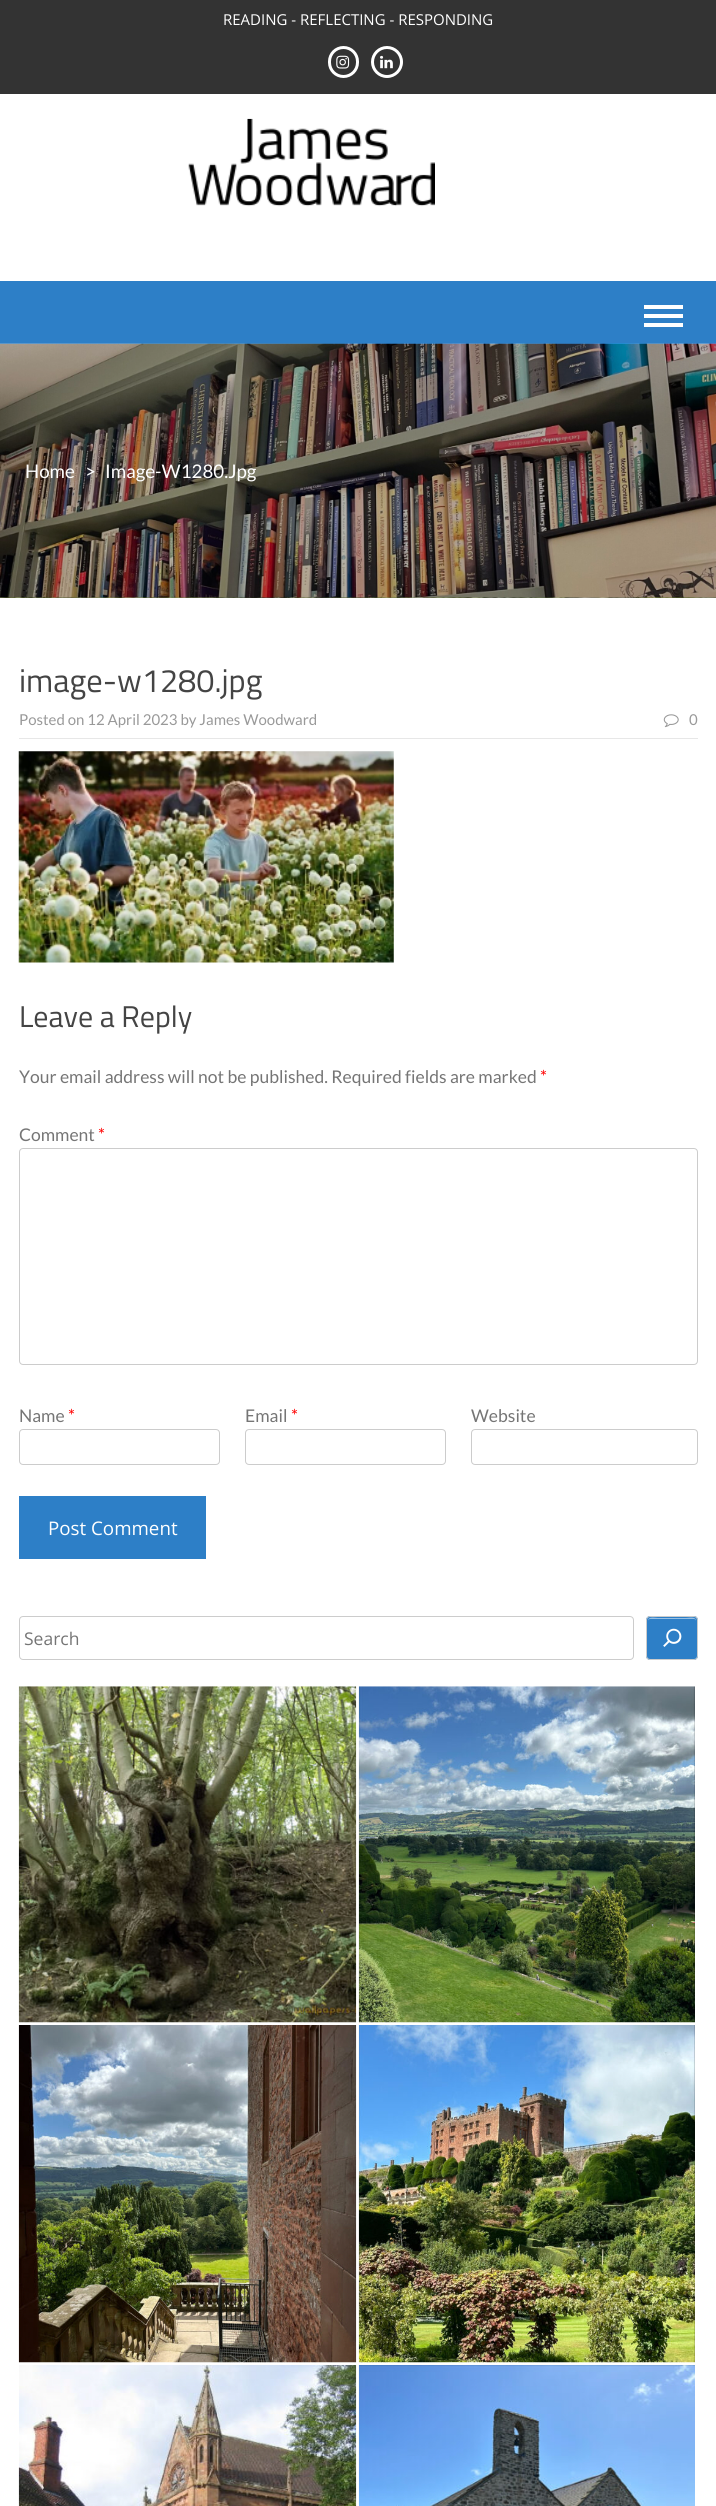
import math
import cairo



def rounded_rect(context, x, y, w, h, r):
    context.new_sub_path()
    for i, (u, v) in enumerate([(x + w - r, y + h - r), (x + r, y + h - r), (x + r, y + r), (x + w - r, y + r)]):
        context.arc(u, v, r, i * math.pi / 2, (i + 1) * math.pi / 2)
    context.close_path()


def draw_image(context, path, x, y, w, h):
    context.save()
    context.set_source_surface(cairo.ImageSurface.create_from_png(path), x, y)
    context.rectangle(x, y, w, h)
    context.fill()
    context.restore()


def draw(context):
    context.set_source_rgb(1, 1, 1)
    context.paint()
    draw_image(context, "images/1.png", 0, 597, 716, 1)
    context.set_source_rgb(51 / 255, 51 / 255, 51 / 255)
    context.rectangle(0, 0, 716, 94)
    context.fill()
    rounded_rect(context, 329.5, 47.5, 28, 29, 14)
    context.set_source_rgb(1, 1, 1)
    context.set_line_width(3)
    context.stroke()
    draw_image(context, "images/2.png", 336, 55, 14, 14)
    context.arc(387, 62, 14.5, 0, 2 * math.pi)
    context.stroke()
    draw_image(context, "images/3.png", 380, 55, 13, 14)
    draw_image(context, "images/4.png", 188, 118, 247, 89)
    context.set_source_rgb(45 / 255, 127 / 255, 199 / 255)
    context.rectangle(0, 281, 716, 63)
    context.fill()
    context.set_source_rgb(1, 1, 1)
    context.rectangle(644, 305, 39, 4)
    context.fill()
    context.rectangle(644, 314, 39, 4)
    context.fill()
    context.rectangle(644, 323, 39, 4)
    context.fill()
    draw_image(context, "images/5.png", 0, 343, 716, 255)
    context.set_source_rgba(0, 0, 0, 0.3)
    context.rectangle(0, 344, 716, 254)
    context.fill()
    context.set_source_rgb(231 / 255, 231 / 255, 231 / 255)
    context.rectangle(19, 738, 679, 1)
    context.fill()
    draw_image(context, "images/6.png", 663, 714, 16, 14)
    draw_image(context, "images/7.png", 18, 751, 376, 212)
    rounded_rect(context, 19.5, 1148.5, 678, 216, 3.5)
    context.set_source_rgb(204 / 255, 204 / 255, 204 / 255)
    context.set_line_width(1)
    context.stroke()
    rounded_rect(context, 19.5, 1429.5, 200, 35, 3.5)
    context.stroke()
    rounded_rect(context, 245.5, 1429.5, 200, 35, 3.5)
    context.stroke()
    rounded_rect(context, 471.5, 1429.5, 226, 35, 3.5)
    context.stroke()
    context.set_source_rgb(45 / 255, 127 / 255, 199 / 255)
    context.rectangle(19, 1496, 187, 63)
    context.fill()
    rounded_rect(context, 19.5, 1616.5, 614, 43, 3.5)
    context.set_source_rgb(204 / 255, 204 / 255, 204 / 255)
    context.stroke()
    context.set_source_rgb(45 / 255, 127 / 255, 199 / 255)
    rounded_rect(context, 646, 1616, 52, 44, 4)
    context.fill()
    context.set_source_rgb(150 / 255, 191 / 255, 227 / 255)
    context.new_path()
    context.move_to(650, 1619)
    context.line_to(694, 1619)
    context.curve_to(695, 1619, 696, 1620, 696, 1621)
    context.curve_to(696, 1616, 689, 1618, 686, 1618)
    context.line_to(658, 1618)
    context.curve_to(655, 1618, 648, 1616, 648, 1621)
    context.curve_to(648, 1620, 649, 1619, 650, 1619)
    context.close_path()
    context.fill()
    rounded_rect(context, 646.5, 1616.5, 51, 43, 3.5)
    context.set_source_rgb(204 / 255, 204 / 255, 204 / 255)
    context.stroke()
    draw_image(context, "images/8.png", 663, 1628, 19, 19)
    draw_image(context, "images/9.png", 18, 1686, 339, 337)
    draw_image(context, "images/10.png", 358, 1686, 337, 337)
    draw_image(context, "images/11.png", 18, 2025, 339, 338)
    draw_image(context, "images/12.png", 358, 2025, 337, 338)
    draw_image(context, "images/13.png", 18, 2365, 339, 141)
    draw_image(context, "images/14.png", 358, 2365, 337, 141)
    context.select_font_face("Open Sans")
    context.set_font_size(15)
    context.set_source_rgb(1, 1, 1)
    context.move_to(223, 25)
    context.show_text("READING - REFLECTING - RESPONDING")
    context.select_font_face("Lato")
    context.set_font_size(18.75)
    context.move_to(25, 478)
    context.show_text("Home")
    context.move_to(85, 478)
    context.show_text(">")
    context.move_to(105, 478)
    context.show_text("Image-W1280.Jpg")
    context.select_font_face("Titillium Web")
    context.set_font_size(32.5)
    context.set_source_rgb(68 / 255, 68 / 255, 68 / 255)
    context.move_to(19, 692)
    context.show_text("image-w1280.jpg")
    context.select_font_face("Lato")
    context.set_font_size(15)
    context.set_source_rgb(153 / 255, 153 / 255, 153 / 255)
    context.move_to(19, 725)
    context.show_text("Posted on 12 April 2023 by James Woodward")
    context.move_to(689, 725)
    context.show_text("0")
    context.select_font_face("Titillium Web")
    context.set_font_size(30)
    context.set_source_rgb(68 / 255, 68 / 255, 68 / 255)
    context.move_to(19, 1027)
    context.show_text("Leave a Reply")
    context.select_font_face("Lato")
    context.set_font_size(17.5)
    context.set_source_rgb(117 / 255, 117 / 255, 117 / 255)
    context.move_to(19, 1083)
    context.show_text("Your email address will not be published. Required fields are marked")
    context.set_source_rgb(1, 0, 0)
    context.move_to(540, 1083)
    context.show_text("*")
    context.set_source_rgb(117 / 255, 117 / 255, 117 / 255)
    context.move_to(19, 1141)
    context.show_text("Comment")
    context.set_source_rgb(1, 0, 0)
    context.move_to(98, 1141)
    context.show_text("*")
    context.set_source_rgb(117 / 255, 117 / 255, 117 / 255)
    context.move_to(19, 1422)
    context.show_text("Name")
    context.set_source_rgb(1, 0, 0)
    context.move_to(68, 1422)
    context.show_text("*")
    context.set_source_rgb(117 / 255, 117 / 255, 117 / 255)
    context.move_to(245, 1422)
    context.show_text("Email")
    context.set_source_rgb(1, 0, 0)
    context.move_to(291, 1422)
    context.show_text("*")
    context.set_source_rgb(117 / 255, 117 / 255, 117 / 255)
    context.move_to(471, 1422)
    context.show_text("Website")
    context.select_font_face("Open Sans")
    context.set_font_size(18.75)
    context.set_source_rgb(1, 1, 1)
    context.move_to(48, 1535)
    context.show_text("Post Comment")
    context.set_font_size(17.5)
    context.set_source_rgb(117 / 255, 117 / 255, 117 / 255)
    context.move_to(24, 1645)
    context.show_text("Search")


surface = cairo.ImageSurface(cairo.Format.RGB24, 716, 2506)
context = cairo.Context(surface)
options = cairo.FontOptions()
options.set_hint_metrics(cairo.HintMetrics.OFF)
options.set_hint_style(cairo.HintStyle.NONE)
context.set_font_options(options)
context.set_miter_limit(4)
draw(context)
surface.write_to_png("out.png")
